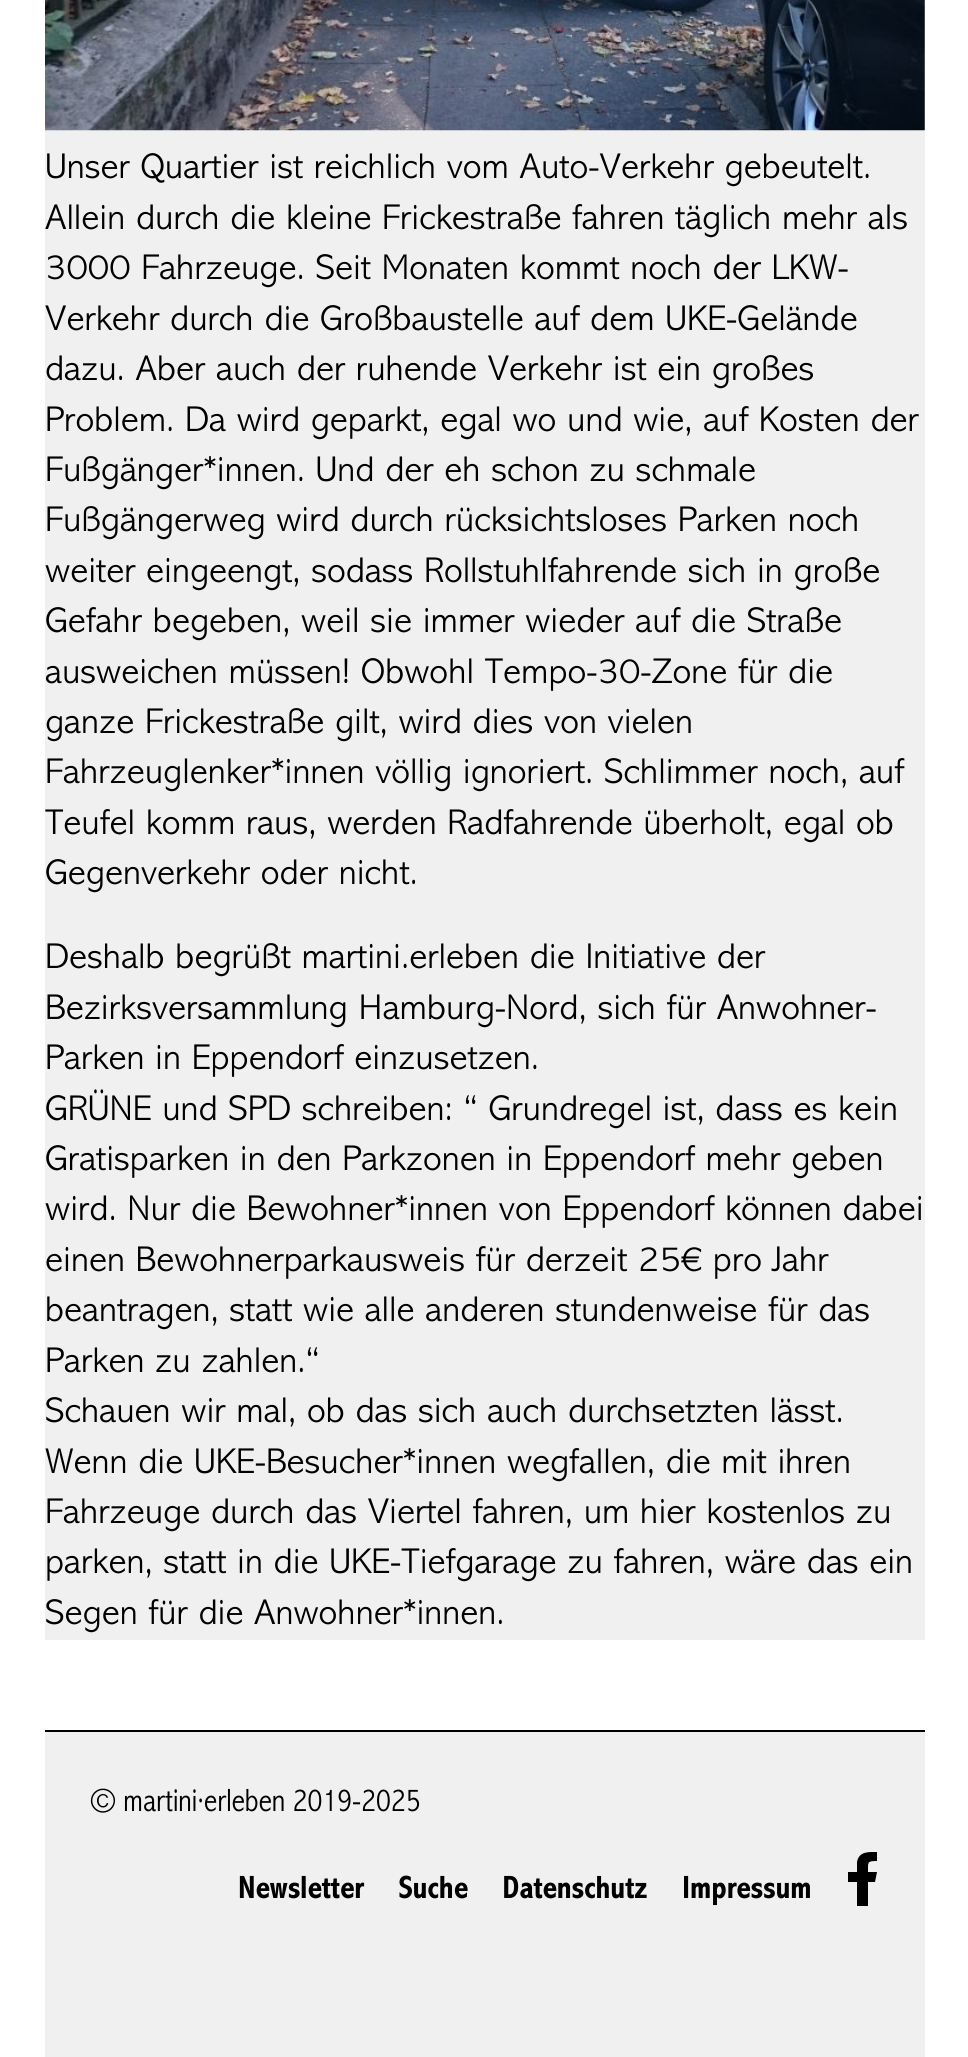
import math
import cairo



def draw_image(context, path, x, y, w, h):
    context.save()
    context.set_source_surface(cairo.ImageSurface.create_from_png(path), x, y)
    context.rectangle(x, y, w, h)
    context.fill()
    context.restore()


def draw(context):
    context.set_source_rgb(1, 1, 1)
    context.paint()
    context.set_source_rgb(240 / 255, 240 / 255, 240 / 255)
    context.rectangle(45, 0, 880, 1640)
    context.fill()
    draw_image(context, "images/1.png", 45, 0, 880, 131)
    context.rectangle(45, 1732, 880, 325)
    context.fill()
    context.set_source_rgb(0, 0, 0)
    context.rectangle(45, 1730, 880, 2)
    context.fill()
    context.new_path()
    context.move_to(875, 1882)
    context.line_to(868, 1882)
    context.line_to(868, 1906)
    context.line_to(857, 1906)
    context.line_to(857, 1882)
    context.line_to(848, 1882)
    context.line_to(848, 1872)
    context.line_to(857, 1872)
    context.line_to(857, 1862)
    context.curve_to(859, 1851, 869, 1852, 877, 1852)
    context.line_to(877, 1861)
    context.curve_to(867, 1861, 868, 1862, 868, 1872)
    context.line_to(877, 1872)
    context.close_path()
    context.fill()
    context.select_font_face("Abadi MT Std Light")
    context.set_font_size(36)
    context.move_to(45, 178)
    context.show_text("Unser Quartier ist reichlich vom Auto-Verkehr gebeutelt.")
    context.move_to(45, 229)
    context.show_text("Allein durch die kleine Frickestraße fahren täglich mehr als")
    context.move_to(45, 279)
    context.show_text("3000 Fahrzeuge. Seit Monaten kommt noch der LKW-")
    context.move_to(45, 330)
    context.show_text("Verkehr durch die Großbaustelle auf dem UKE-Gelände")
    context.move_to(45, 380)
    context.show_text("dazu. Aber auch der ruhende Verkehr ist ein großes")
    context.move_to(45, 431)
    context.show_text("Problem. Da wird geparkt, egal wo und wie, auf Kosten der")
    context.move_to(45, 481)
    context.show_text("Fußgänger*innen. Und der eh schon zu schmale")
    context.move_to(45, 531)
    context.show_text("Fußgängerweg wird durch rücksichtsloses Parken noch")
    context.move_to(45, 582)
    context.show_text("weiter eingeengt, sodass Rollstuhlfahrende sich in große")
    context.move_to(45, 632)
    context.show_text("Gefahr begeben, weil sie immer wieder auf die Straße")
    context.move_to(45, 683)
    context.show_text("ausweichen müssen! Obwohl Tempo-30-Zone für die")
    context.move_to(45, 733)
    context.show_text("ganze Frickestraße gilt, wird dies von vielen")
    context.move_to(45, 783)
    context.show_text("Fahrzeuglenker*innen völlig ignoriert. Schlimmer noch, auf")
    context.move_to(45, 834)
    context.show_text("Teufel komm raus, werden Radfahrende überholt, egal ob")
    context.move_to(45, 884)
    context.show_text("Gegenverkehr oder nicht.")
    context.move_to(45, 968)
    context.show_text("Deshalb begrüßt martini.erleben die Initiative der")
    context.move_to(45, 1019)
    context.show_text("Bezirksversammlung Hamburg-Nord, sich für Anwohner-")
    context.move_to(45, 1069)
    context.show_text("Parken in Eppendorf einzusetzen.")
    context.move_to(45, 1120)
    context.show_text("GRÜNE und SPD schreiben: “ Grundregel ist, dass es kein")
    context.move_to(45, 1170)
    context.show_text("Gratisparken in den Parkzonen in Eppendorf mehr geben")
    context.move_to(45, 1220)
    context.show_text("wird. Nur die Bewohner*innen von Eppendorf können dabei")
    context.move_to(45, 1271)
    context.show_text("einen Bewohnerparkausweis für derzeit 25€ pro Jahr")
    context.move_to(45, 1321)
    context.show_text("beantragen, statt wie alle anderen stundenweise für das")
    context.move_to(45, 1372)
    context.show_text("Parken zu zahlen.“")
    context.move_to(45, 1422)
    context.show_text("Schauen wir mal, ob das sich auch durchsetzten lässt.")
    context.move_to(45, 1473)
    context.show_text("Wenn die UKE-Besucher*innen wegfallen, die mit ihren")
    context.move_to(45, 1523)
    context.show_text("Fahrzeuge durch das Viertel fahren, um hier kostenlos zu")
    context.move_to(45, 1573)
    context.show_text("parken, statt in die UKE-Tiefgarage zu fahren, wäre das ein")
    context.move_to(45, 1624)
    context.show_text("Segen für die Anwohner*innen.")
    context.select_font_face("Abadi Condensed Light")
    context.set_font_size(32.4)
    context.move_to(90, 1811)
    context.show_text("© martini·erleben 2019-2025")
    context.select_font_face("Abadi Condensed", cairo.FontSlant.NORMAL, cairo.FontWeight.BOLD)
    context.move_to(238, 1898)
    context.show_text("Newsletter")
    context.move_to(398, 1898)
    context.show_text("Suche")
    context.move_to(502, 1898)
    context.show_text("Datenschutz")
    context.move_to(682, 1898)
    context.show_text("Impressum")


surface = cairo.ImageSurface(cairo.Format.RGB24, 968, 2057)
context = cairo.Context(surface)
options = cairo.FontOptions()
options.set_hint_metrics(cairo.HintMetrics.OFF)
options.set_hint_style(cairo.HintStyle.NONE)
context.set_font_options(options)
context.set_miter_limit(4)
draw(context)
surface.write_to_png("out.png")
